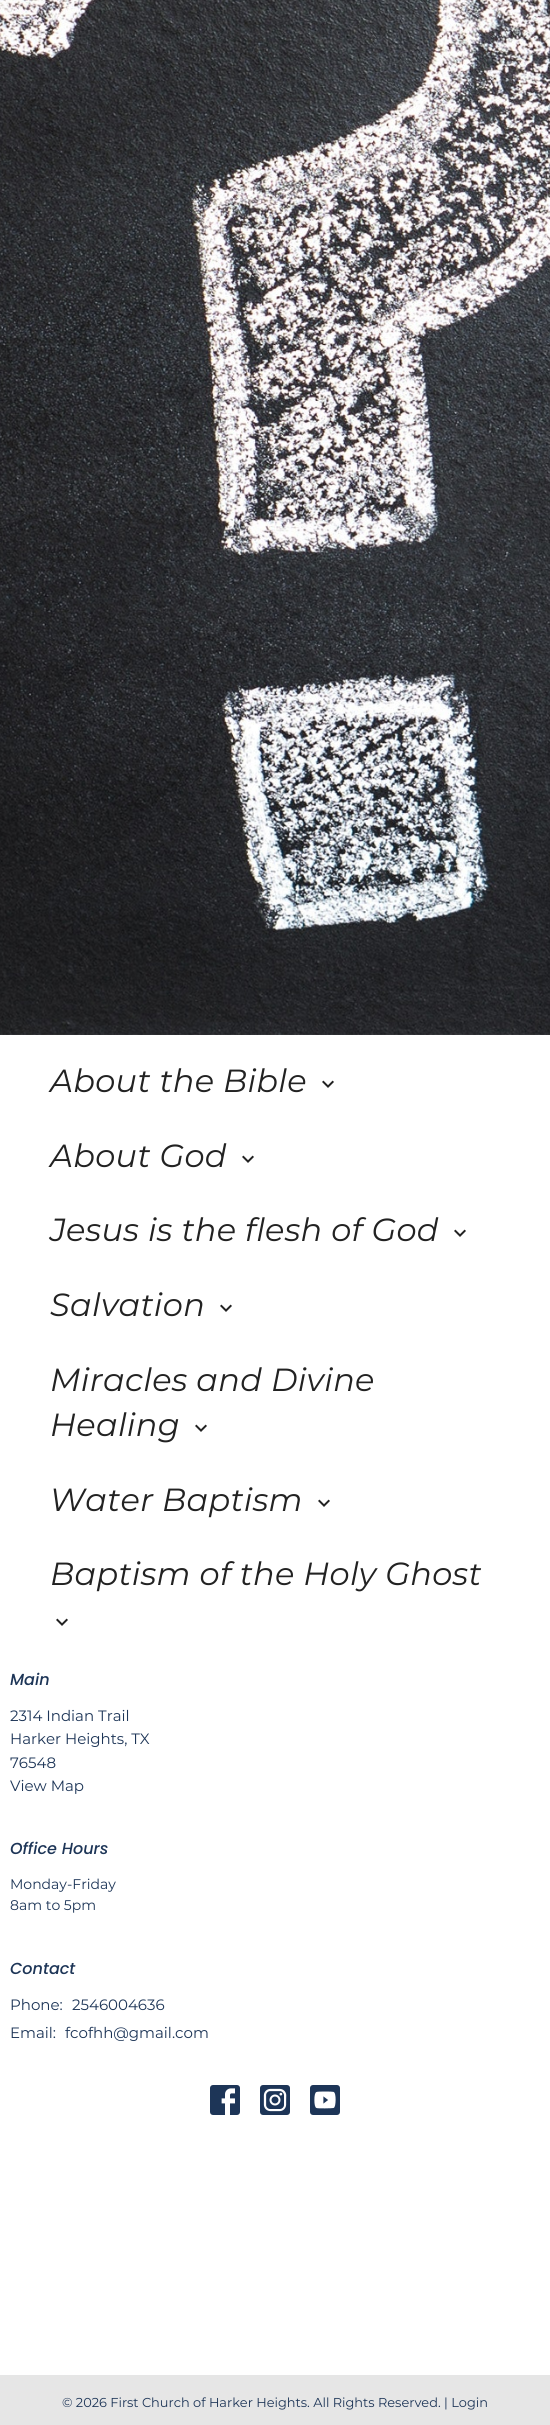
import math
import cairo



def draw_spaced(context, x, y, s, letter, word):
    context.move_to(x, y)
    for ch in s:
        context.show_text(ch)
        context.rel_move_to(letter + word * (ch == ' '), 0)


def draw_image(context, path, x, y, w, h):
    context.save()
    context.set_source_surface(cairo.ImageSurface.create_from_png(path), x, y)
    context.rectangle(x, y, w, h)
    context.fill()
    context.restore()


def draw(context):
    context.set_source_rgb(1, 1, 1)
    context.paint()
    draw_image(context, "images/1.png", 0, 0, 550, 1035)
    draw_image(context, "images/2.png", 322, 1080, 12, 8)
    draw_image(context, "images/2.png", 242, 1155, 12, 8)
    draw_image(context, "images/2.png", 454, 1229, 12, 8)
    draw_image(context, "images/2.png", 220, 1304, 12, 8)
    draw_image(context, "images/2.png", 195, 1424, 12, 8)
    draw_image(context, "images/2.png", 318, 1499, 12, 8)
    draw_image(context, "images/2.png", 56, 1618, 12, 8)
    draw_image(context, "images/3.png", 210, 2085, 30, 30)
    draw_image(context, "images/4.png", 260, 2085, 30, 30)
    draw_image(context, "images/5.png", 310, 2085, 30, 30)
    context.set_source_rgb(230 / 255, 230 / 255, 230 / 255)
    context.rectangle(0, 2375, 550, 50)
    context.fill()
    context.select_font_face("Montserrat", cairo.FontSlant.ITALIC)
    context.set_font_size(32)
    context.set_source_rgb(34 / 255, 34 / 255, 34 / 255)
    draw_spaced(context, 50, 1092, "About the Bible", 0.3, 0)
    draw_spaced(context, 50, 1167, "About God", 0.3, 0)
    draw_spaced(context, 50, 1241, "Jesus is the flesh of God", 0.3, 0)
    draw_spaced(context, 50, 1316, "Salvation", 0.3, 0)
    draw_spaced(context, 50, 1391, "Miracles and Divine", 0.3, 0)
    draw_spaced(context, 50, 1436, "Healing", 0.3, 0)
    draw_spaced(context, 50, 1511, "Water Baptism", 0.3, 0)
    draw_spaced(context, 50, 1585, "Baptism of the Holy Ghost", 0.3, 0)
    context.select_font_face("Poppins Medium", cairo.FontSlant.ITALIC)
    context.set_font_size(16)
    context.set_source_rgb(29 / 255, 53 / 255, 87 / 255)
    context.move_to(10, 1685)
    context.show_text("Main")
    context.select_font_face("Montserrat")
    context.set_font_size(15)
    context.move_to(10, 1721)
    context.show_text("2314 Indian Trail")
    context.move_to(10, 1744)
    context.show_text("Harker Heights, TX")
    context.move_to(10, 1768)
    context.show_text("76548")
    context.move_to(10, 1791)
    context.show_text("View Map")
    context.select_font_face("Poppins Medium", cairo.FontSlant.ITALIC)
    context.set_font_size(16)
    context.move_to(10, 1854)
    context.show_text("Office Hours")
    context.select_font_face("Montserrat")
    context.set_font_size(14)
    context.move_to(10, 1889)
    context.show_text("Monday-Friday")
    context.move_to(10, 1910)
    context.show_text("8am to 5pm")
    context.select_font_face("Poppins Medium", cairo.FontSlant.ITALIC)
    context.set_font_size(16)
    context.move_to(10, 1974)
    context.show_text("Contact")
    context.select_font_face("Montserrat")
    context.set_font_size(15)
    context.move_to(10, 2010)
    context.show_text("Phone:")
    context.move_to(72, 2010)
    context.show_text("2546004636")
    context.move_to(10, 2038)
    context.show_text("Email:")
    context.move_to(65, 2038)
    context.show_text("fcofhh@gmail.com")
    context.set_font_size(12.9)
    context.move_to(62, 2407)
    context.show_text("© 2026 First Church of Harker Heights. All Rights Reserved. | Login")


surface = cairo.ImageSurface(cairo.Format.RGB24, 550, 2425)
context = cairo.Context(surface)
options = cairo.FontOptions()
options.set_hint_metrics(cairo.HintMetrics.OFF)
options.set_hint_style(cairo.HintStyle.NONE)
context.set_font_options(options)
context.set_miter_limit(4)
draw(context)
surface.write_to_png("out.png")
